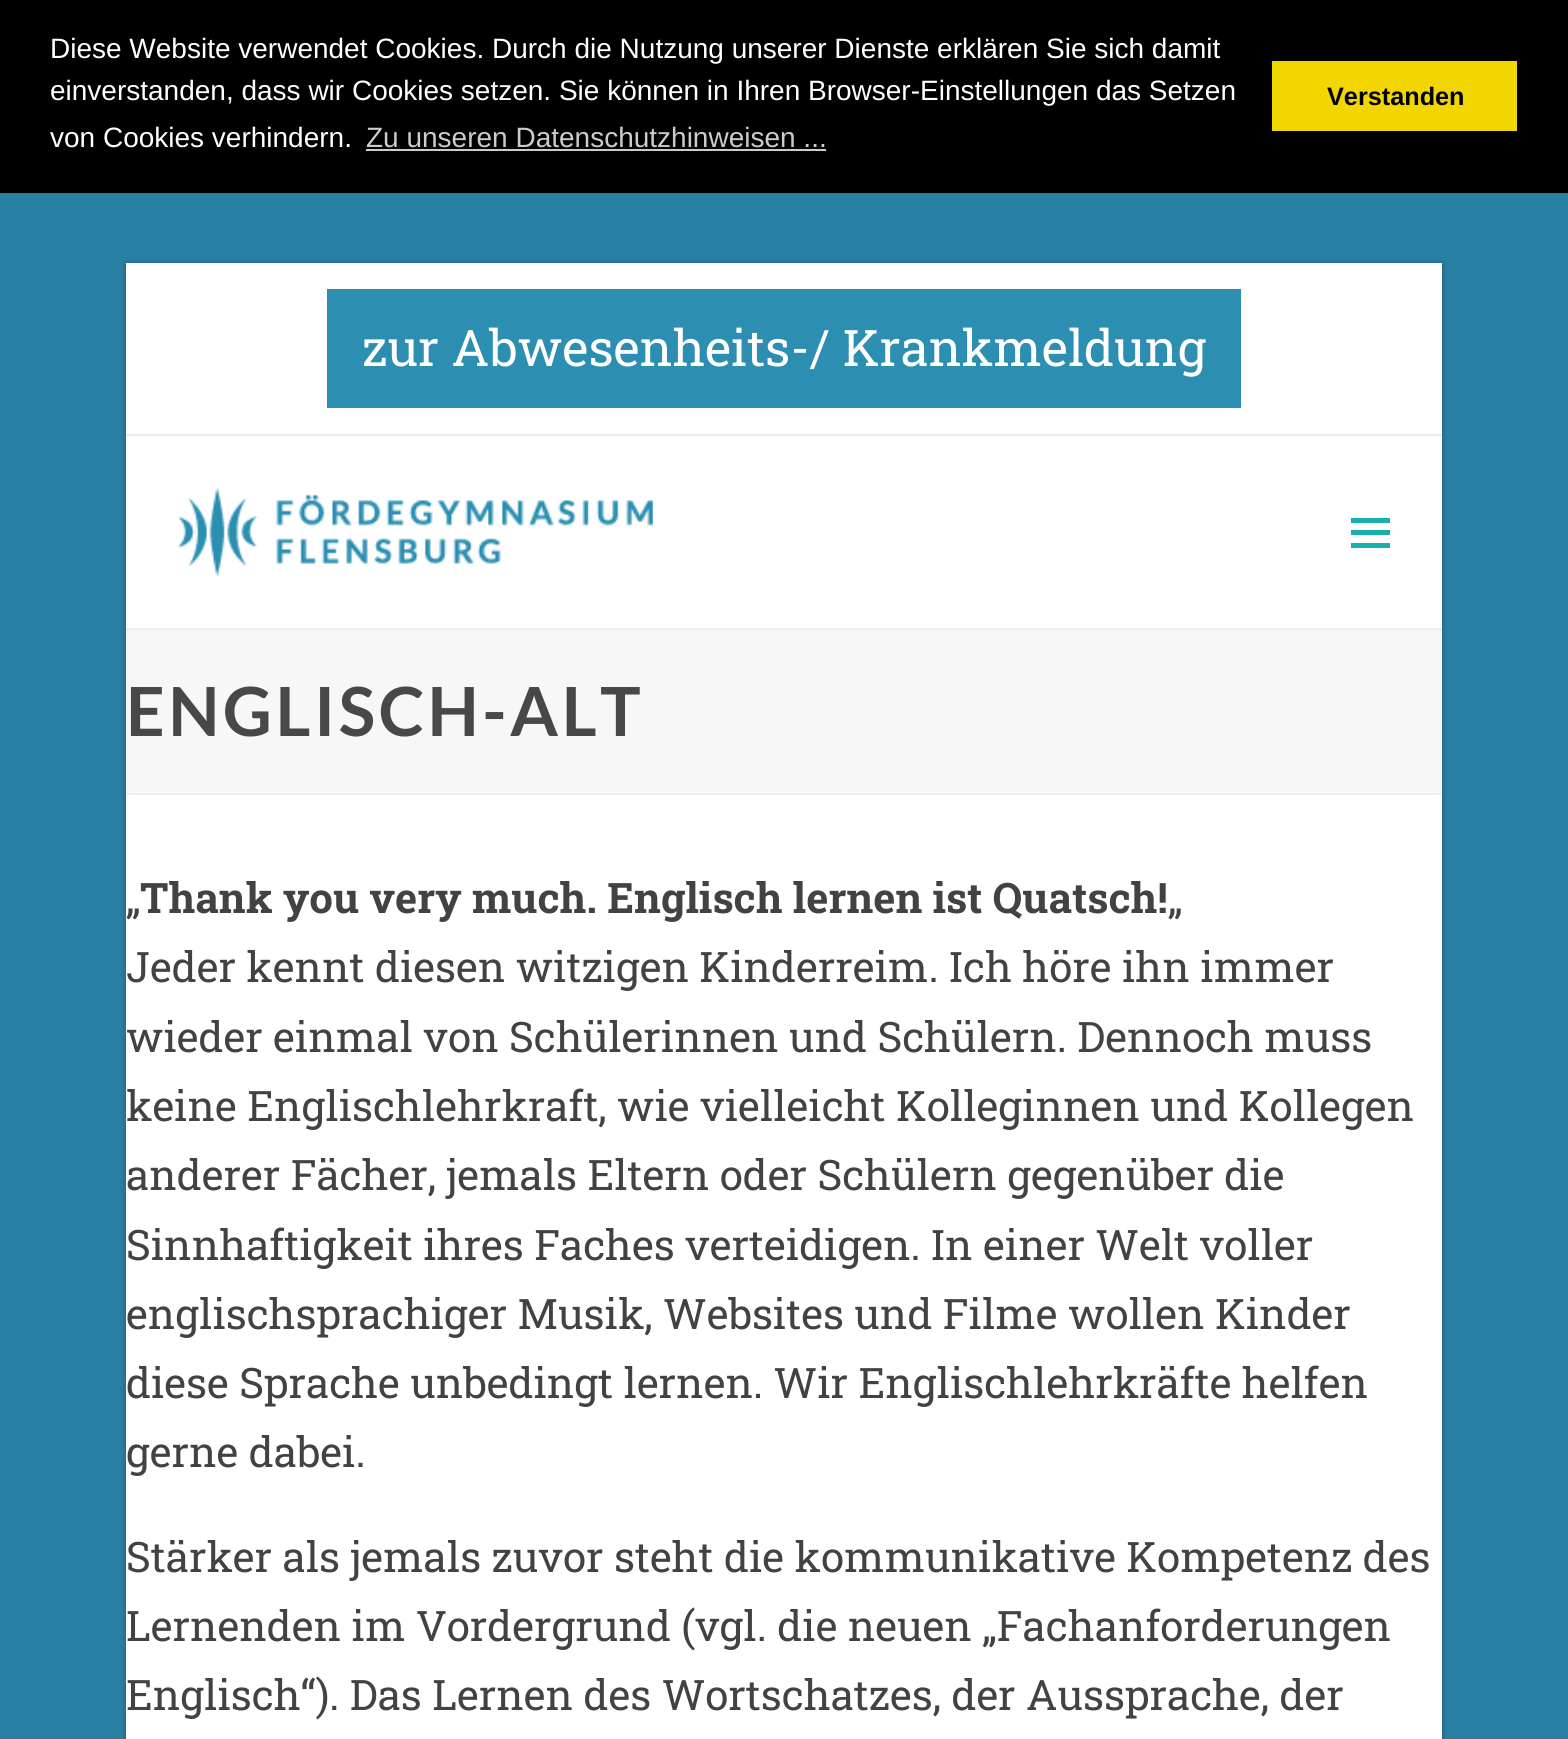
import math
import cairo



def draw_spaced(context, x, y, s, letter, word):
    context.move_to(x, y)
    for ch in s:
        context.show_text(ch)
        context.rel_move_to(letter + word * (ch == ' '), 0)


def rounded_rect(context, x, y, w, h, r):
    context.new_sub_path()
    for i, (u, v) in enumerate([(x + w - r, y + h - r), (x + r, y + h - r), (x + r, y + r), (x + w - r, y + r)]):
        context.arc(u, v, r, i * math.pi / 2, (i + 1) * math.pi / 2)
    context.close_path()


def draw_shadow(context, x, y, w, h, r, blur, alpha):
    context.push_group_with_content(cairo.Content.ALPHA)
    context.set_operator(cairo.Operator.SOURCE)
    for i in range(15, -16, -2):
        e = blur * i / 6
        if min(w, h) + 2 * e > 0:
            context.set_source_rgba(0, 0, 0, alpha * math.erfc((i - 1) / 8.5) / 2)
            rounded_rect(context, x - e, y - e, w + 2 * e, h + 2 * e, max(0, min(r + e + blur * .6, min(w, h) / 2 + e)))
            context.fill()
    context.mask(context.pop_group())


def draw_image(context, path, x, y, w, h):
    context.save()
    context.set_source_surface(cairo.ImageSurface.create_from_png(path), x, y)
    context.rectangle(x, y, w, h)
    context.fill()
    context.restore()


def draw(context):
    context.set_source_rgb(41 / 255, 128 / 255, 165 / 255)
    context.paint()
    context.set_source_rgb(0, 0, 0)
    context.rectangle(0, 0, 1568, 193)
    context.fill()
    context.set_source_rgb(204 / 255, 204 / 255, 204 / 255)
    context.rectangle(366, 149, 460, 2)
    context.fill()
    context.set_source_rgb(241 / 255, 214 / 255, 0)
    context.rectangle(1272, 61, 245, 70)
    context.fill()
    context.set_source_rgb(0, 0, 0)
    draw_shadow(context, 126, 264, 1316, 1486, 0, 3.5, 0.25)
    context.set_source_rgb(1, 1, 1)
    context.rectangle(126, 263, 1316, 1476)
    context.fill()
    context.set_source_rgb(238 / 255, 238 / 255, 238 / 255)
    context.rectangle(126, 434, 1316, 2)
    context.fill()
    context.set_source_rgb(44 / 255, 143 / 255, 178 / 255)
    context.rectangle(327, 289, 914, 119)
    context.fill()
    draw_image(context, "images/1.png", 178, 488, 475, 88)
    context.set_source_rgb(26 / 255, 175 / 255, 175 / 255)
    context.rectangle(1351, 530, 39, 5)
    context.fill()
    context.rectangle(1351, 518, 39, 5)
    context.fill()
    context.rectangle(1351, 543, 39, 5)
    context.fill()
    context.set_source_rgb(247 / 255, 247 / 255, 247 / 255)
    context.rectangle(126, 630, 1316, 163)
    context.fill()
    context.set_source_rgb(238 / 255, 238 / 255, 238 / 255)
    context.rectangle(126, 628, 1316, 2)
    context.fill()
    context.rectangle(126, 793, 1316, 2)
    context.fill()
    context.select_font_face("Liberation Sans")
    context.set_font_size(28)
    context.set_source_rgb(1, 1, 1)
    context.move_to(50, 58)
    context.show_text("Diese Website verwendet Cookies. Durch die Nutzung unserer Dienste erklären Sie sich damit")
    context.move_to(50, 100)
    context.show_text("einverstanden, dass wir Cookies setzen. Sie können in Ihren Browser-Einstellungen das Setzen")
    context.move_to(50, 147)
    context.show_text("von Cookies verhindern.")
    context.set_source_rgb(204 / 255, 204 / 255, 204 / 255)
    context.move_to(366, 147)
    context.show_text("Zu unseren Datenschutzhinweisen ...")
    context.select_font_face("Liberation Sans", cairo.FontSlant.NORMAL, cairo.FontWeight.BOLD)
    context.set_font_size(25.25)
    context.set_source_rgb(0, 0, 0)
    context.move_to(1327, 105)
    context.show_text("Verstanden")
    context.select_font_face("Roboto Slab")
    context.set_font_size(50.4)
    context.set_source_rgb(1, 1, 1)
    context.move_to(362, 366)
    context.show_text("zur Abwesenheits-/ Krankmeldung")
    context.select_font_face("Lato", cairo.FontSlant.NORMAL, cairo.FontWeight.BOLD)
    context.set_font_size(67.75)
    context.set_source_rgb(72 / 255, 72 / 255, 72 / 255)
    draw_spaced(context, 126, 736, "ENGLISCH-ALT", 3.5, 0)
    context.select_font_face("Roboto Slab")
    context.set_font_size(42)
    context.set_source_rgb(66 / 255, 66 / 255, 66 / 255)
    context.move_to(126, 913)
    context.show_text("„")
    context.select_font_face("Roboto Slab", cairo.FontSlant.NORMAL, cairo.FontWeight.BOLD)
    context.move_to(140, 913)
    context.show_text("Thank you very much. Englisch lernen ist Quatsch!")
    context.select_font_face("Roboto Slab")
    context.move_to(1168, 913)
    context.show_text("„")
    context.move_to(126, 982)
    context.show_text("Jeder kennt diesen witzigen Kinderreim. Ich höre ihn immer")
    context.move_to(126, 1052)
    context.show_text("wieder einmal von Schülerinnen und Schülern. Dennoch muss")
    context.move_to(126, 1121)
    context.show_text("keine Englischlehrkraft, wie vielleicht Kolleginnen und Kollegen")
    context.move_to(126, 1190)
    context.show_text("anderer Fächer, jemals Eltern oder Schülern gegenüber die")
    context.move_to(126, 1260)
    context.show_text("Sinnhaftigkeit ihres Faches verteidigen. In einer Welt voller")
    context.move_to(126, 1329)
    context.show_text("englischsprachiger Musik, Websites und Filme wollen Kinder")
    context.move_to(126, 1398)
    context.show_text("diese Sprache unbedingt lernen. Wir Englischlehrkräfte helfen")
    context.move_to(126, 1467)
    context.show_text("gerne dabei.")
    context.move_to(126, 1572)
    context.show_text("Stärker als jemals zuvor steht die kommunikative Kompetenz des")
    context.move_to(126, 1641)
    context.show_text("Lernenden im Vordergrund (vgl. die neuen „Fachanforderungen")
    context.move_to(126, 1710)
    context.show_text("Englisch“). Das Lernen des Wortschatzes, der Aussprache, der")


surface = cairo.ImageSurface(cairo.Format.RGB24, 1568, 1739)
context = cairo.Context(surface)
options = cairo.FontOptions()
options.set_hint_metrics(cairo.HintMetrics.OFF)
options.set_hint_style(cairo.HintStyle.NONE)
context.set_font_options(options)
context.set_miter_limit(4)
draw(context)
surface.write_to_png("out.png")
